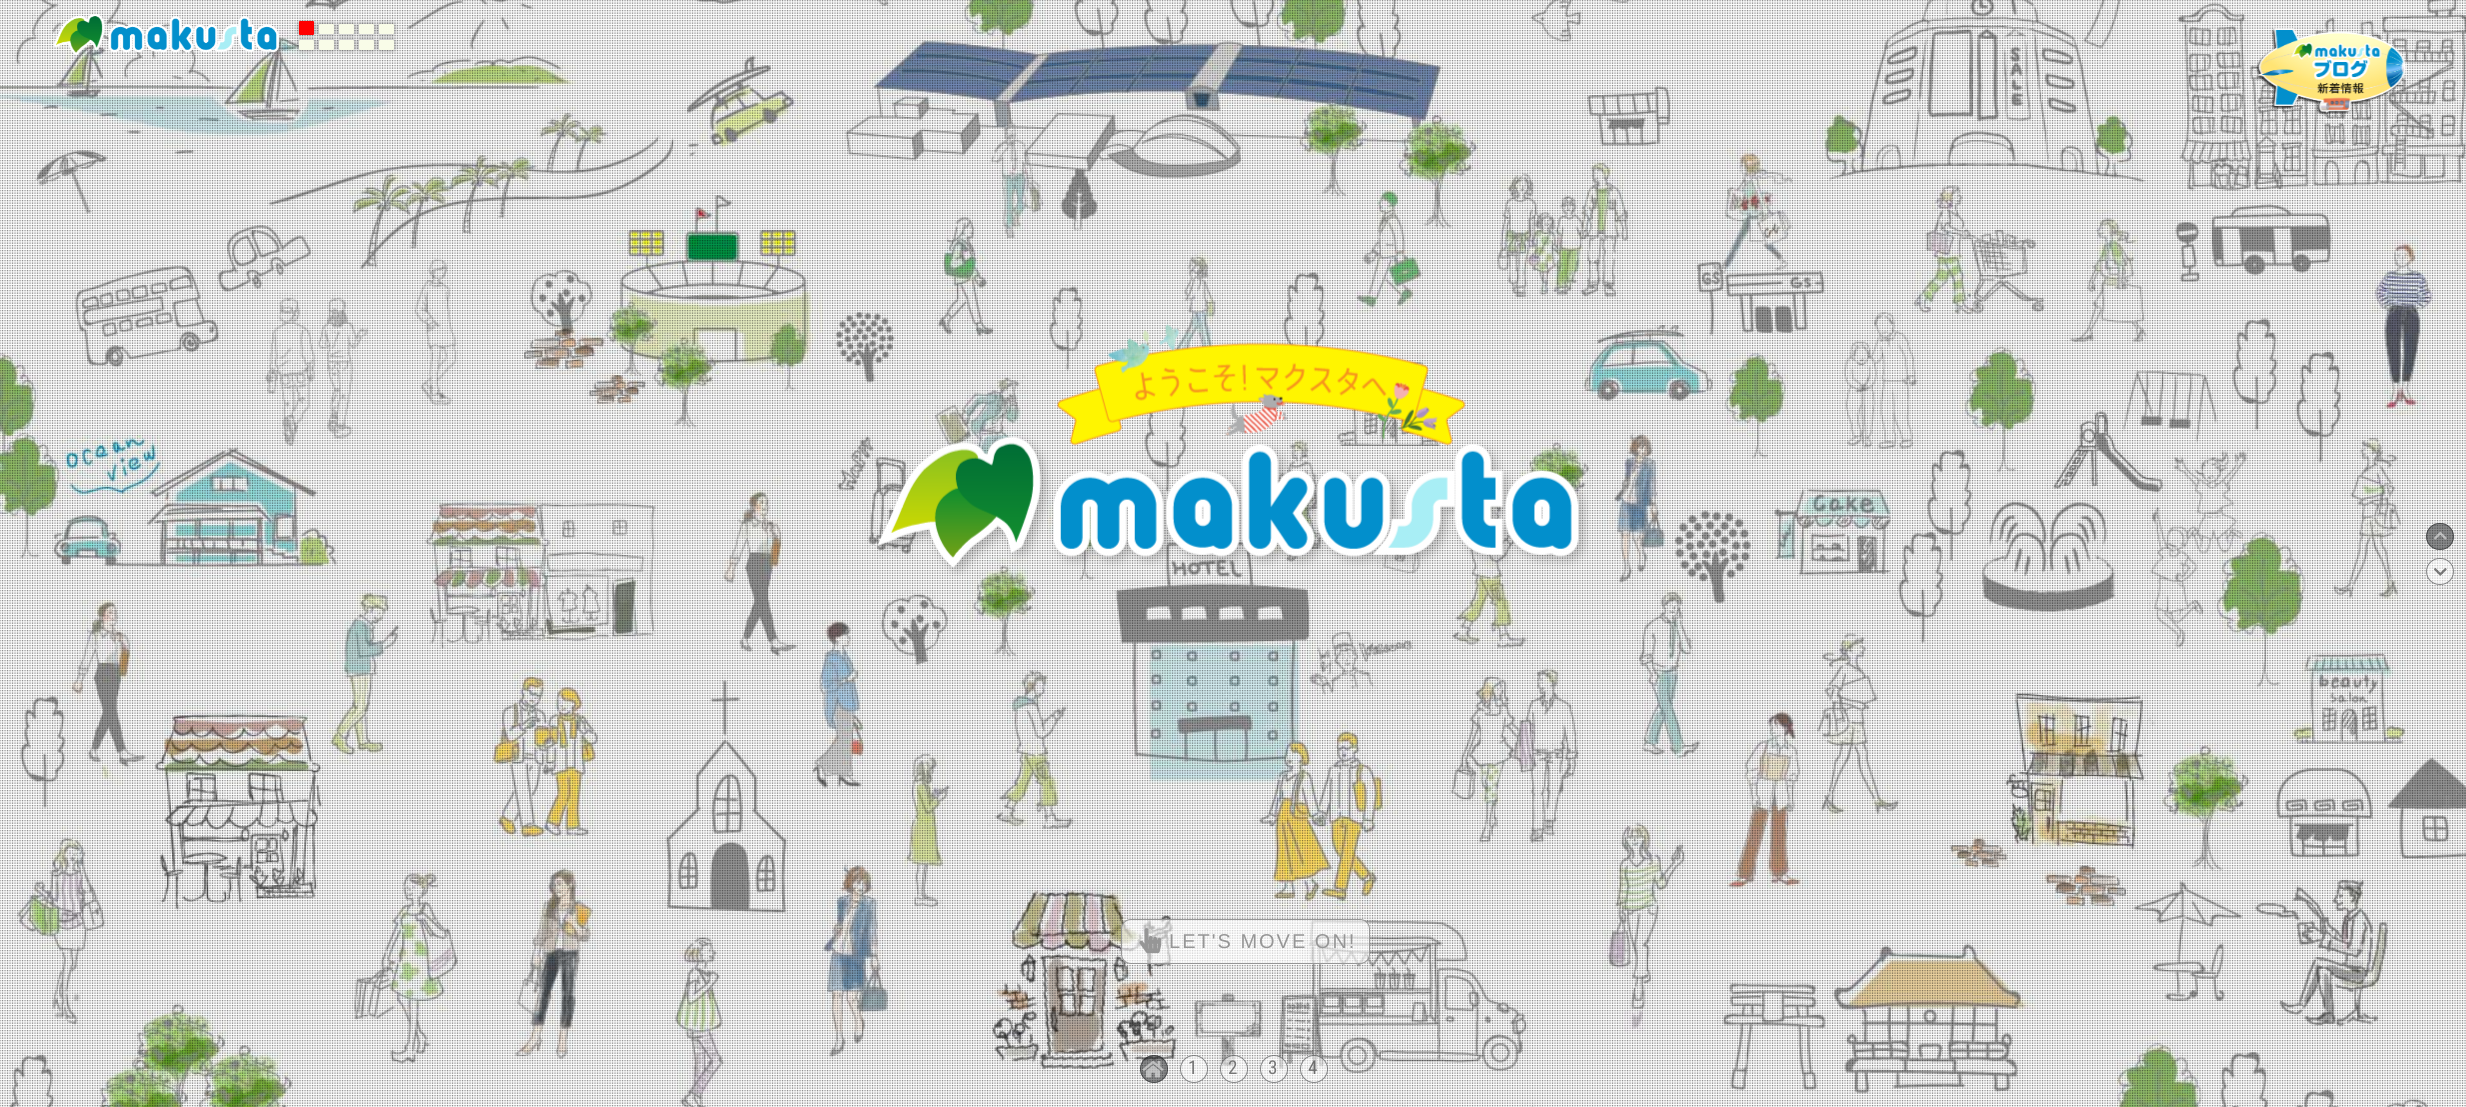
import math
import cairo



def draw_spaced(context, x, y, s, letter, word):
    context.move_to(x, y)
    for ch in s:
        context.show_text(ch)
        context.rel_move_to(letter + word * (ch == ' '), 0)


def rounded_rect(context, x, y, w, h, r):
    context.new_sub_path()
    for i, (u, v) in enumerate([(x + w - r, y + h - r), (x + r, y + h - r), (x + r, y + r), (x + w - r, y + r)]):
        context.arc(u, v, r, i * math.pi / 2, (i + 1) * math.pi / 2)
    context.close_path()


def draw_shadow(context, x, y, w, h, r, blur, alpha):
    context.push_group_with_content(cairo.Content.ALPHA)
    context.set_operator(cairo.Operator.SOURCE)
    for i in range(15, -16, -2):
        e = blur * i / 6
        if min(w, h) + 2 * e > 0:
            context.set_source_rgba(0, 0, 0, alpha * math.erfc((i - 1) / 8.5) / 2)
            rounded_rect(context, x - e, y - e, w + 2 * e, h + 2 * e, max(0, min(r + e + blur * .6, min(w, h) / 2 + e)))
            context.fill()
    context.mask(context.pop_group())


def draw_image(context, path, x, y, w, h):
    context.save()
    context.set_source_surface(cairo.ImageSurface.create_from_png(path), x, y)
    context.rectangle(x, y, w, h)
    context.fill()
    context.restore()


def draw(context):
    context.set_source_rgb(1, 1, 1)
    context.paint()
    draw_image(context, "images/5.png", 0, 0, 2466, 1107)
    draw_image(context, "images/1.png", 53, 13, 226, 42)
    context.set_source_rgb(0, 0, 0)
    draw_shadow(context, 319, 24, 15, 10, 1, 2.5, 0.4)
    context.set_source_rgb(249 / 255, 252 / 255, 232 / 255)
    rounded_rect(context, 319, 24, 15, 10, 1)
    context.fill()
    context.set_source_rgb(0, 0, 0)
    draw_shadow(context, 299, 40, 15, 10, 1, 2.5, 0.4)
    context.set_source_rgb(249 / 255, 252 / 255, 232 / 255)
    rounded_rect(context, 299, 40, 15, 10, 1)
    context.fill()
    context.set_source_rgb(0, 0, 0)
    draw_shadow(context, 339, 24, 15, 10, 1, 2.5, 0.4)
    context.set_source_rgb(249 / 255, 252 / 255, 232 / 255)
    rounded_rect(context, 339, 24, 15, 10, 1)
    context.fill()
    context.set_source_rgb(0, 0, 0)
    draw_shadow(context, 319, 40, 15, 10, 1, 2.5, 0.4)
    context.set_source_rgb(249 / 255, 252 / 255, 232 / 255)
    rounded_rect(context, 319, 40, 15, 10, 1)
    context.fill()
    context.set_source_rgb(0, 0, 0)
    draw_shadow(context, 299, 23, 15, 11, 1, 2.5, 0.4)
    context.set_source_rgb(1, 0, 0)
    rounded_rect(context, 299, 21, 15, 14, 1)
    context.fill()
    context.set_source_rgb(0, 0, 0)
    draw_shadow(context, 359, 24, 15, 10, 1, 2.5, 0.4)
    context.set_source_rgb(249 / 255, 252 / 255, 232 / 255)
    rounded_rect(context, 359, 24, 15, 10, 1)
    context.fill()
    context.set_source_rgb(0, 0, 0)
    draw_shadow(context, 379, 24, 15, 10, 1, 2.5, 0.4)
    context.set_source_rgb(249 / 255, 252 / 255, 232 / 255)
    rounded_rect(context, 379, 24, 15, 10, 1)
    context.fill()
    context.set_source_rgb(0, 0, 0)
    draw_shadow(context, 339, 40, 15, 10, 1, 2.5, 0.4)
    context.set_source_rgb(249 / 255, 252 / 255, 232 / 255)
    rounded_rect(context, 339, 40, 15, 10, 1)
    context.fill()
    context.set_source_rgb(0, 0, 0)
    draw_shadow(context, 359, 40, 15, 10, 1, 2.5, 0.4)
    context.set_source_rgb(249 / 255, 252 / 255, 232 / 255)
    rounded_rect(context, 359, 40, 15, 10, 1)
    context.fill()
    context.set_source_rgb(0, 0, 0)
    draw_shadow(context, 379, 40, 15, 10, 1, 2.5, 0.4)
    context.set_source_rgb(249 / 255, 252 / 255, 232 / 255)
    rounded_rect(context, 379, 40, 15, 10, 1)
    context.fill()
    draw_image(context, "images/2.png", 2256, 28, 150, 88)
    context.set_source_rgba(24 / 255, 26 / 255, 28 / 255, 0.5)
    rounded_rect(context, 2426, 523, 28, 27, 13.5)
    context.fill()
    rounded_rect(context, 2426.5, 523.5, 27, 26, 13)
    context.set_line_width(1)
    context.stroke()
    draw_image(context, "images/3.png", 2434, 531, 13, 9)
    context.set_source_rgba(1, 1, 1, 0.5)
    rounded_rect(context, 2426, 558, 28, 27, 13.5)
    context.fill()
    rounded_rect(context, 2426.5, 558.5, 27, 26, 13)
    context.set_source_rgba(24 / 255, 26 / 255, 28 / 255, 0.5)
    context.stroke()
    draw_image(context, "images/4.png", 2434, 568, 13, 8)
    draw_image(context, "images/6.png", 877, 324, 712, 252)
    context.set_source_rgba(1, 1, 1, 0.6)
    rounded_rect(context, 1121.5, 919.5, 248, 44, 9.5)
    context.fill_preserve()
    context.set_source_rgb(150 / 255, 150 / 255, 150 / 255)
    context.stroke()
    draw_image(context, "images/7.png", 1139, 928, 23, 26)
    context.set_source_rgba(24 / 255, 26 / 255, 28 / 255, 0.5)
    context.arc(1154, 1069, 14, 0, 2 * math.pi)
    context.fill()
    context.arc(1154, 1069, 13.5, 0, 2 * math.pi)
    context.stroke()
    draw_image(context, "images/8.png", 1142, 1061, 22, 17)
    context.set_source_rgba(1, 1, 1, 0.5)
    context.arc(1194, 1069, 14, 0, 2 * math.pi)
    context.fill()
    context.arc(1194, 1069, 13.5, 0, 2 * math.pi)
    context.set_source_rgba(24 / 255, 26 / 255, 28 / 255, 0.5)
    context.stroke()
    context.set_source_rgba(1, 1, 1, 0.5)
    context.arc(1234, 1069, 14, 0, 2 * math.pi)
    context.fill()
    context.arc(1234, 1069, 13.5, 0, 2 * math.pi)
    context.set_source_rgba(24 / 255, 26 / 255, 28 / 255, 0.5)
    context.stroke()
    context.set_source_rgba(1, 1, 1, 0.5)
    context.arc(1274, 1069, 14, 0, 2 * math.pi)
    context.fill()
    context.arc(1274, 1069, 13.5, 0, 2 * math.pi)
    context.set_source_rgba(24 / 255, 26 / 255, 28 / 255, 0.5)
    context.stroke()
    context.set_source_rgba(1, 1, 1, 0.5)
    context.arc(1314, 1069, 14, 0, 2 * math.pi)
    context.fill()
    context.arc(1314, 1069, 13.5, 0, 2 * math.pi)
    context.set_source_rgba(24 / 255, 26 / 255, 28 / 255, 0.5)
    context.stroke()
    context.select_font_face("Liberation Sans")
    context.set_font_size(20)
    context.set_source_rgb(150 / 255, 150 / 255, 150 / 255)
    draw_spaced(context, 1169, 948, "LET'S MOVE ON!", 2, 0)
    context.select_font_face("Roboto Condensed")
    context.set_font_size(19)
    context.set_source_rgb(118 / 255, 118 / 255, 118 / 255)
    context.move_to(1188, 1074)
    context.show_text("1")
    context.move_to(1228, 1074)
    context.show_text("2")
    context.move_to(1268, 1074)
    context.show_text("3")
    context.set_source_rgb(108 / 255, 108 / 255, 108 / 255)
    context.move_to(1308, 1074)
    context.show_text("4")


surface = cairo.ImageSurface(cairo.Format.RGB24, 2466, 1107)
context = cairo.Context(surface)
options = cairo.FontOptions()
options.set_hint_metrics(cairo.HintMetrics.OFF)
options.set_hint_style(cairo.HintStyle.NONE)
context.set_font_options(options)
context.set_miter_limit(4)
draw(context)
surface.write_to_png("out.png")
